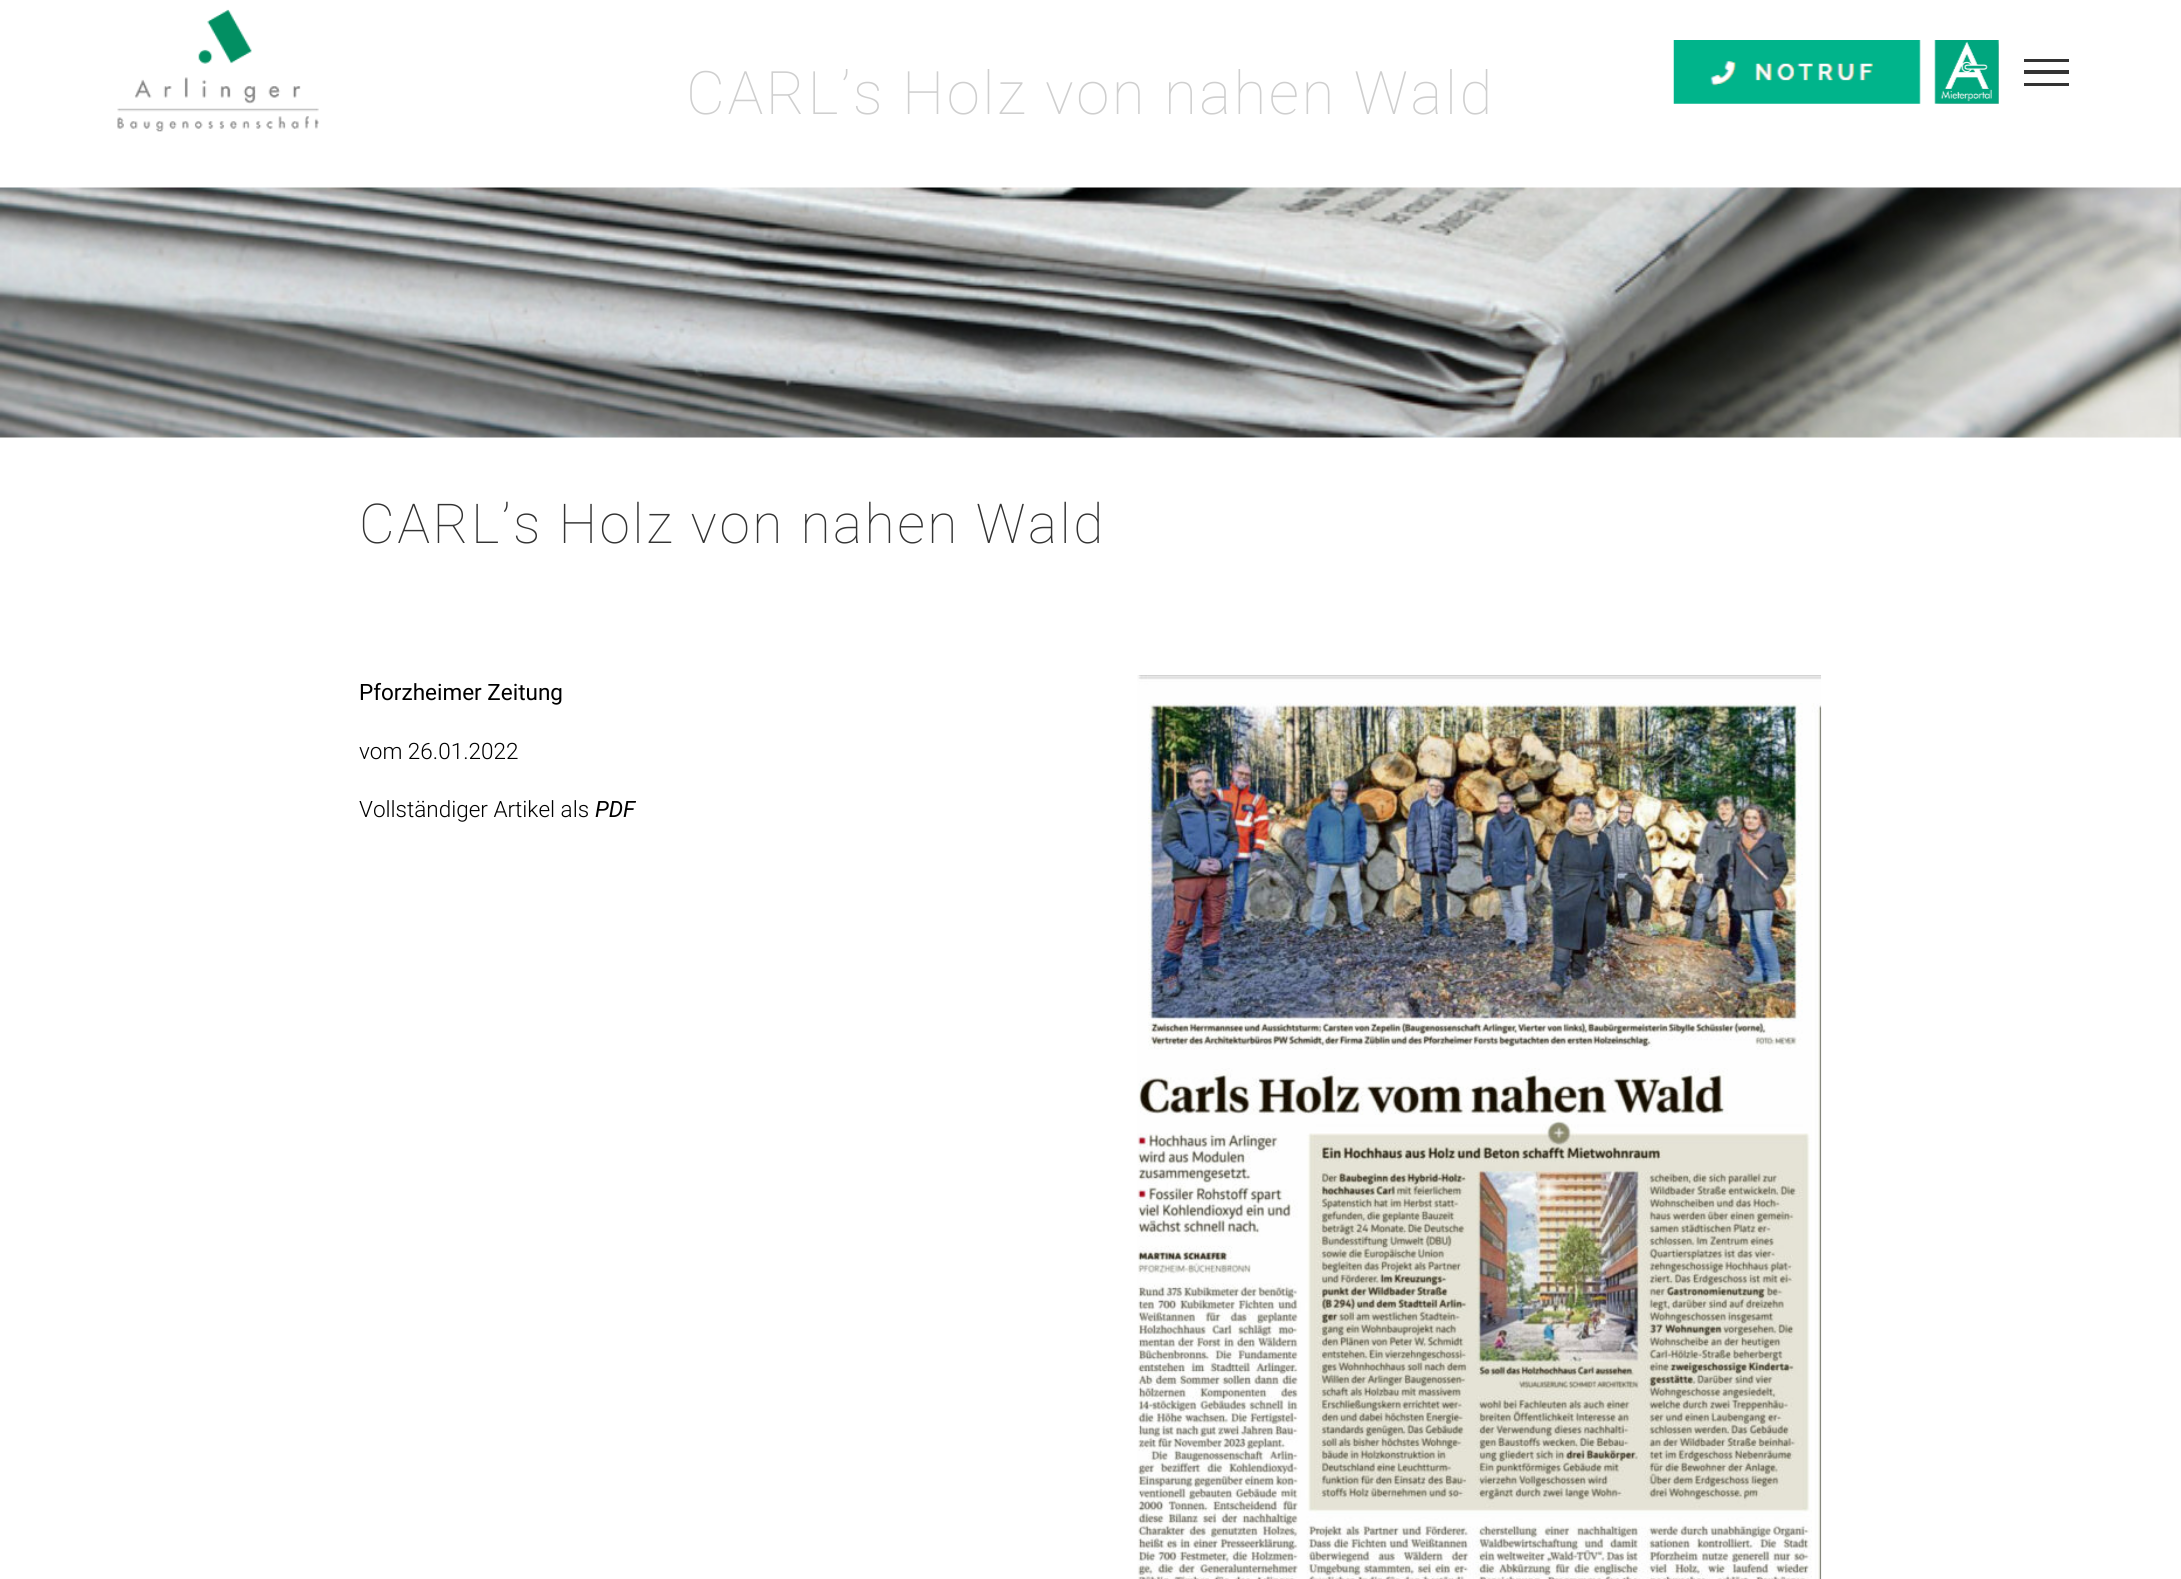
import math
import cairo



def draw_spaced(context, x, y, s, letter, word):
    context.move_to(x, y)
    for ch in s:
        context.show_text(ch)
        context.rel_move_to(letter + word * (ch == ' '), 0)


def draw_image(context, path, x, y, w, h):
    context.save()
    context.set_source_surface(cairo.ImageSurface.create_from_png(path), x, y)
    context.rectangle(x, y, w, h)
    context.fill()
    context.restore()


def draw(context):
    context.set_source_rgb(1, 1, 1)
    context.paint()
    draw_image(context, "images/1.png", 117, 9, 202, 123)
    draw_image(context, "images/2.png", 1673, 40, 248, 64)
    draw_image(context, "images/3.png", 1934, 40, 65, 64)
    context.set_source_rgb(51 / 255, 51 / 255, 51 / 255)
    context.rectangle(2024, 59, 45, 3)
    context.fill()
    context.rectangle(2024, 70, 45, 4)
    context.fill()
    context.rectangle(2024, 83, 45, 3)
    context.fill()
    draw_image(context, "images/4.png", 0, 187, 2181, 251)
    draw_image(context, "images/5.png", 1137, 675, 685, 904)
    context.select_font_face("Roboto Thin")
    context.set_font_size(60)
    context.set_source_rgb(207 / 255, 207 / 255, 207 / 255)
    draw_spaced(context, 686, 114, "CARL’s Holz von nahen Wald", 2.5, 0)
    context.set_font_size(55)
    context.set_source_rgb(51 / 255, 51 / 255, 51 / 255)
    draw_spaced(context, 359, 543, "CARL’s Holz von nahen Wald", 2.5, 0)
    context.select_font_face("Roboto")
    context.set_font_size(22.5)
    context.set_source_rgb(0, 0, 0)
    context.move_to(359, 700)
    context.show_text("Pforzheimer Zeitung")
    context.select_font_face("Roboto Light")
    context.move_to(359, 759)
    context.show_text("vom 26.01.2022")
    context.move_to(359, 817)
    context.show_text("Vollständiger Artikel als")
    context.select_font_face("Roboto", cairo.FontSlant.ITALIC)
    context.move_to(595, 817)
    context.show_text("PDF")


surface = cairo.ImageSurface(cairo.Format.RGB24, 2181, 1579)
context = cairo.Context(surface)
options = cairo.FontOptions()
options.set_hint_metrics(cairo.HintMetrics.OFF)
options.set_hint_style(cairo.HintStyle.NONE)
context.set_font_options(options)
context.set_miter_limit(4)
draw(context)
surface.write_to_png("out.png")
